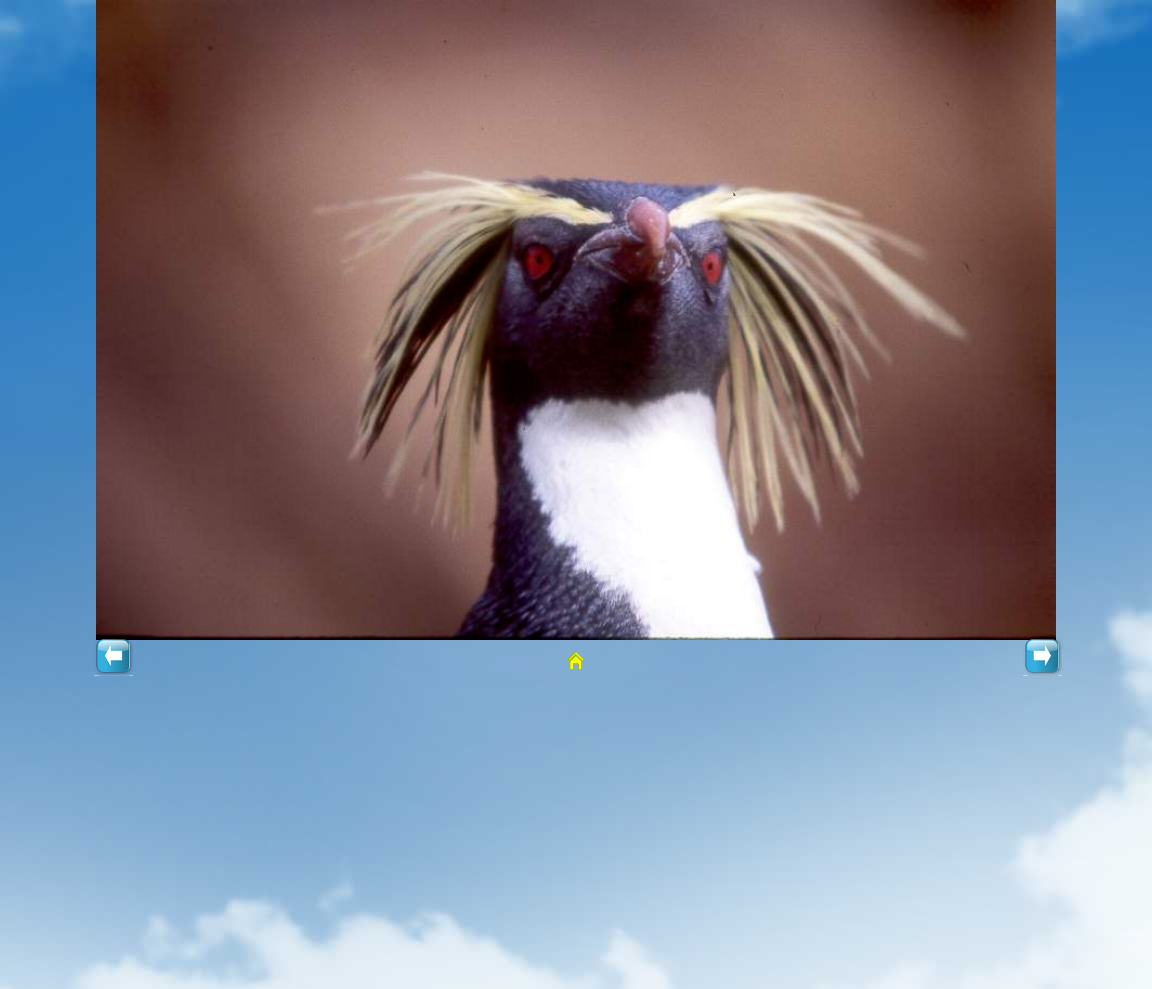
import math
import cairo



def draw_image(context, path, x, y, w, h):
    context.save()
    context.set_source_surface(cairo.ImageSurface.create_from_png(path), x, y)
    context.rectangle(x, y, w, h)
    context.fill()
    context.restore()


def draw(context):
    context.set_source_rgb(1, 1, 1)
    context.paint()
    draw_image(context, "images/1.png", 0, 0, 1152, 989)
    draw_image(context, "images/2.png", 96, 0, 960, 640)
    draw_image(context, "images/3.png", 94, 639, 39, 37)
    draw_image(context, "images/4.png", 568, 651, 15, 18)
    draw_image(context, "images/5.png", 1023, 638, 39, 38)


surface = cairo.ImageSurface(cairo.Format.RGB24, 1152, 989)
context = cairo.Context(surface)
options = cairo.FontOptions()
options.set_hint_metrics(cairo.HintMetrics.OFF)
options.set_hint_style(cairo.HintStyle.NONE)
context.set_font_options(options)
context.set_miter_limit(4)
draw(context)
surface.write_to_png("out.png")
